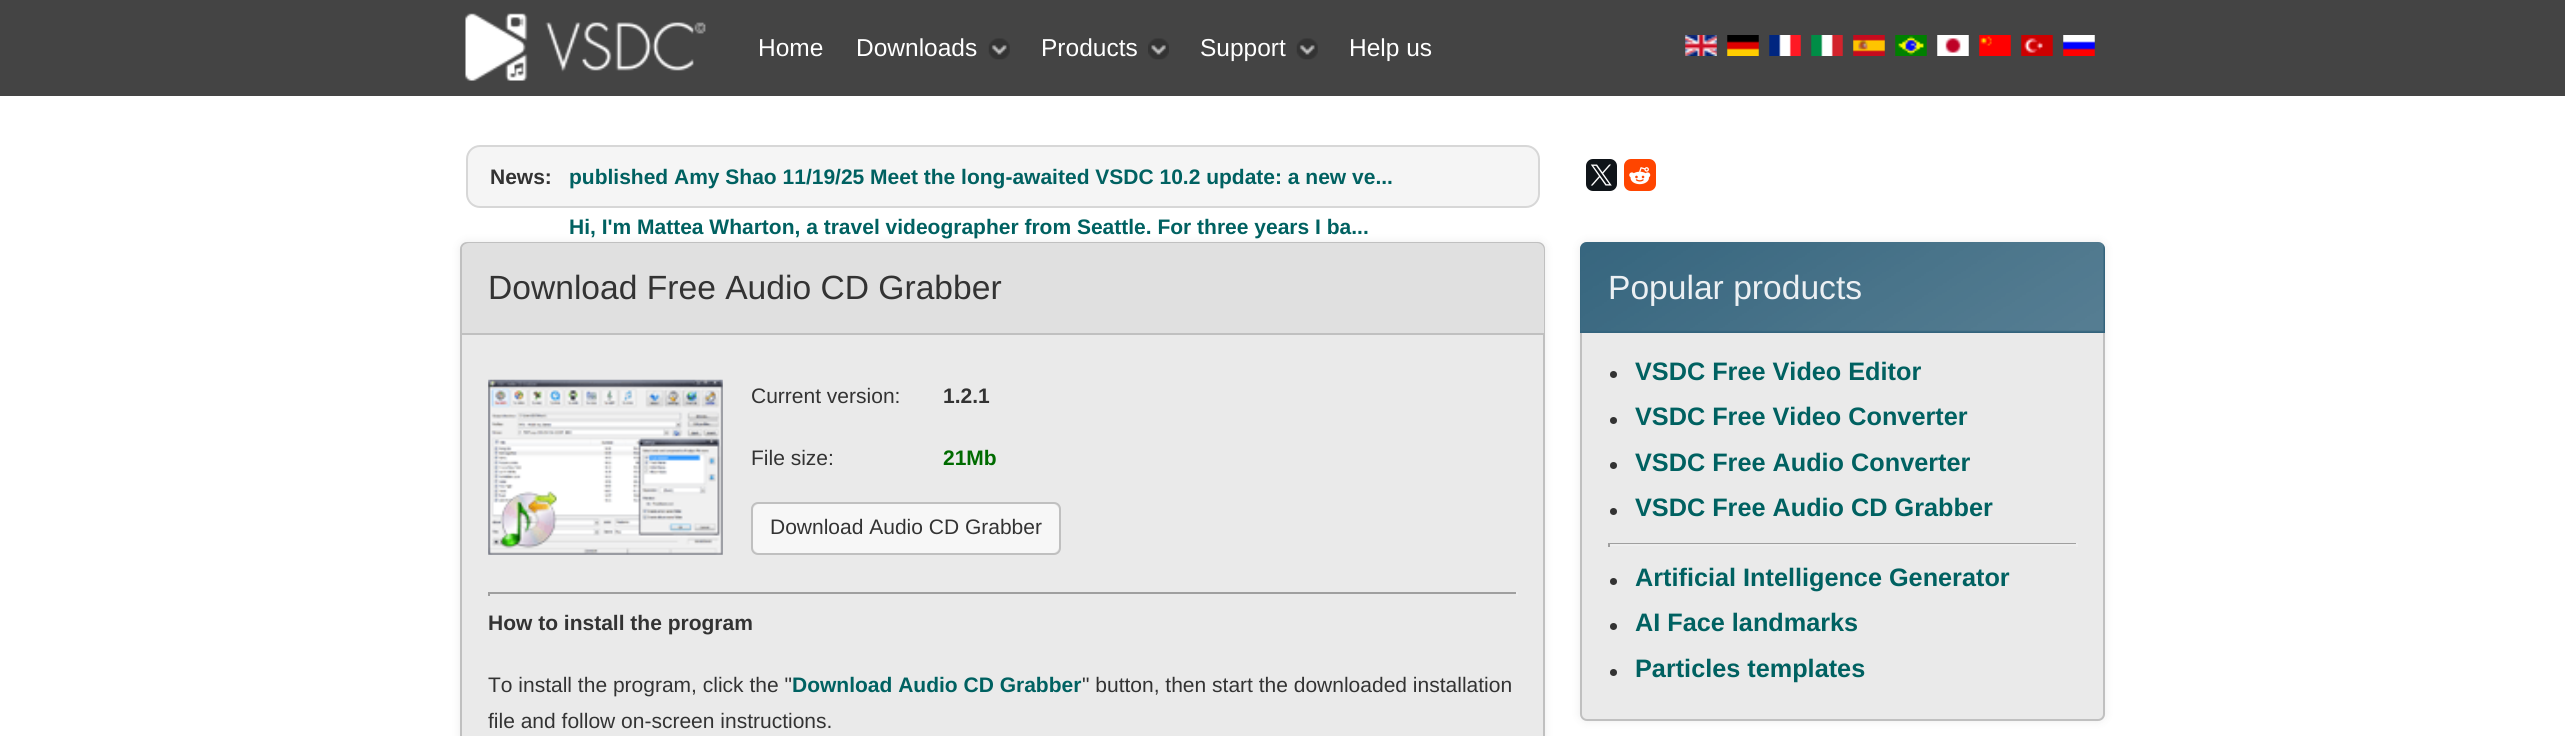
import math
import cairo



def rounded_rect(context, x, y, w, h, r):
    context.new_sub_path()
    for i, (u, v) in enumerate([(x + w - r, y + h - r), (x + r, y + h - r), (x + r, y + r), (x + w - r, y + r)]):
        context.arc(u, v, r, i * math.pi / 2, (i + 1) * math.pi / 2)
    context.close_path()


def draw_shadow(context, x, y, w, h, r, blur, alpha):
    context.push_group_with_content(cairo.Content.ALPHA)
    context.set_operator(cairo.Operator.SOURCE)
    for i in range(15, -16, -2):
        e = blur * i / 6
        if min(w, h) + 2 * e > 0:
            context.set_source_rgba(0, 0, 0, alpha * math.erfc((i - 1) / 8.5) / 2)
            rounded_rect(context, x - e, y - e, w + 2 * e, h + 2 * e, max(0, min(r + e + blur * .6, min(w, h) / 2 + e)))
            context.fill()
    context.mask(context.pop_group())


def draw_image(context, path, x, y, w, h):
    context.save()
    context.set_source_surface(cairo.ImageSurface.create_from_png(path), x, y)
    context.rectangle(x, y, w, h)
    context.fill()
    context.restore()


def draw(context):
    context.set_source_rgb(1, 1, 1)
    context.paint()
    context.set_source_rgb(68 / 255, 68 / 255, 68 / 255)
    context.rectangle(0, 0, 2565, 96)
    context.fill()
    draw_image(context, "images/1.png", 465, 13, 241, 68)
    draw_image(context, "images/2.png", 988, 38, 22, 22)
    draw_image(context, "images/3.png", 1148, 38, 21, 22)
    draw_image(context, "images/4.png", 1296, 38, 22, 22)
    draw_image(context, "images/5.png", 1685, 35, 32, 21)
    draw_image(context, "images/6.png", 1727, 35, 32, 21)
    draw_image(context, "images/7.png", 1769, 35, 32, 21)
    draw_image(context, "images/8.png", 1811, 35, 32, 21)
    draw_image(context, "images/9.png", 1853, 35, 32, 21)
    draw_image(context, "images/10.png", 1895, 35, 32, 21)
    draw_image(context, "images/11.png", 1937, 35, 32, 21)
    draw_image(context, "images/12.png", 1979, 35, 32, 21)
    draw_image(context, "images/13.png", 2021, 35, 32, 21)
    draw_image(context, "images/14.png", 2063, 35, 32, 21)
    context.set_source_rgb(245 / 255, 245 / 255, 245 / 255)
    rounded_rect(context, 467, 146, 1072, 61, 13)
    context.fill_preserve()
    context.set_source_rgb(215 / 255, 215 / 255, 215 / 255)
    context.stroke()
    context.set_source_rgb(15 / 255, 20 / 255, 25 / 255)
    rounded_rect(context, 1586, 159, 31, 32, 7)
    context.fill()
    draw_image(context, "images/15.png", 1590, 164, 22, 22)
    context.set_source_rgb(1, 69 / 255, 0)
    rounded_rect(context, 1624, 159, 32, 32, 7)
    context.fill()
    draw_image(context, "images/16.png", 1629, 167, 22, 18)
    context.set_source_rgb(51 / 255, 51 / 255, 51 / 255)
    draw_shadow(context, 460, 242, 1085, 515, 7, 4.5, 0.1)
    context.set_source_rgb(234 / 255, 234 / 255, 234 / 255)
    rounded_rect(context, 461, 243, 1083, 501, 6)
    context.fill_preserve()
    context.set_source_rgb(192 / 255, 192 / 255, 192 / 255)
    context.stroke()
    context.set_source_rgb(224 / 255, 224 / 255, 224 / 255)
    context.new_path()
    context.move_to(469, 243)
    context.line_to(1537, 243)
    context.curve_to(1541, 243, 1544, 246, 1544, 250)
    context.line_to(1544, 334)
    context.line_to(462, 334)
    context.line_to(462, 250)
    context.curve_to(462, 246, 465, 243, 469, 243)
    context.close_path()
    context.fill()
    context.set_source_rgb(192 / 255, 192 / 255, 192 / 255)
    context.rectangle(462, 333, 1082, 2)
    context.fill()
    draw_image(context, "images/17.png", 488, 379, 235, 176)
    rounded_rect(context, 752, 503, 308, 51, 6)
    context.stroke()
    context.set_source_rgb(247 / 255, 247 / 255, 247 / 255)
    rounded_rect(context, 753, 504, 306, 49, 7)
    context.fill()
    context.set_source_rgb(159 / 255, 159 / 255, 159 / 255)
    context.rectangle(488, 592, 1029, 2)
    context.fill()
    context.set_source_rgb(238 / 255, 238 / 255, 238 / 255)
    context.rectangle(1516, 592, 2, 4)
    context.fill()
    context.set_source_rgb(159 / 255, 159 / 255, 159 / 255)
    context.rectangle(488, 592, 2, 4)
    context.fill()
    context.set_source_rgb(51 / 255, 51 / 255, 51 / 255)
    draw_shadow(context, 1580, 242, 525, 479, 7, 4.5, 0.1)
    context.set_source_rgb(234 / 255, 234 / 255, 234 / 255)
    rounded_rect(context, 1581, 243, 523, 477, 6)
    context.fill_preserve()
    context.set_source_rgb(192 / 255, 192 / 255, 192 / 255)
    context.stroke()
    context.set_source_rgb(51 / 255, 99 / 255, 124 / 255)
    context.new_path()
    context.move_to(1587, 242)
    context.line_to(2098, 242)
    context.curve_to(2102, 242, 2105, 245, 2105, 249)
    context.line_to(2105, 333)
    context.line_to(1580, 333)
    context.line_to(1580, 249)
    context.curve_to(1580, 245, 1583, 242, 1587, 242)
    context.close_path()
    context.fill()
    draw_image(context, "images/18.png", 1580, 242, 524, 90)
    context.set_source_rgb(51 / 255, 51 / 255, 51 / 255)
    context.arc(1613.5, 374.5, 3.5, 0, 2 * math.pi)
    context.fill()
    context.arc(1613.5, 420.5, 3.5, 0, 2 * math.pi)
    context.fill()
    context.arc(1613.5, 465.5, 3.5, 0, 2 * math.pi)
    context.fill()
    context.arc(1613.5, 511.5, 3.5, 0, 2 * math.pi)
    context.fill()
    context.set_source_rgb(159 / 255, 159 / 255, 159 / 255)
    context.rectangle(1608, 543, 469, 1)
    context.fill()
    context.set_source_rgb(238 / 255, 238 / 255, 238 / 255)
    context.rectangle(2076, 543, 2, 4)
    context.fill()
    context.rectangle(1608, 544, 469, 2)
    context.fill()
    context.set_source_rgb(159 / 255, 159 / 255, 159 / 255)
    context.rectangle(1608, 543, 2, 4)
    context.fill()
    context.set_source_rgb(51 / 255, 51 / 255, 51 / 255)
    context.arc(1613.5, 581.5, 3.5, 0, 2 * math.pi)
    context.fill()
    context.arc(1613.5, 626.5, 3.5, 0, 2 * math.pi)
    context.fill()
    context.arc(1613.5, 672.5, 3.5, 0, 2 * math.pi)
    context.fill()
    context.select_font_face("Liberation Sans")
    context.set_font_size(24.5)
    context.set_source_rgb(1, 1, 1)
    context.move_to(758, 56)
    context.show_text("Home")
    context.move_to(856, 56)
    context.show_text("Downloads")
    context.move_to(1041, 56)
    context.show_text("Products")
    context.move_to(1200, 56)
    context.show_text("Support")
    context.move_to(1349, 56)
    context.show_text("Help us")
    context.select_font_face("Liberation Sans", cairo.FontSlant.NORMAL, cairo.FontWeight.BOLD)
    context.set_font_size(21)
    context.set_source_rgb(51 / 255, 51 / 255, 51 / 255)
    context.move_to(490, 184)
    context.show_text("News:")
    context.set_source_rgb(0, 97 / 255, 97 / 255)
    context.move_to(569, 184)
    context.show_text("published Amy Shao 11/19/25 Meet the long-awaited VSDC 10.2 update: a new ve...")
    context.move_to(569, 234)
    context.show_text("Hi, I'm Mattea Wharton, a travel videographer from Seattle. For three years I ba...")
    context.select_font_face("Liberation Sans")
    context.set_font_size(33.6)
    context.set_source_rgb(51 / 255, 51 / 255, 51 / 255)
    context.move_to(488, 299)
    context.show_text("Download Free Audio CD Grabber")
    context.set_font_size(21)
    context.move_to(751, 403)
    context.show_text("Current version:")
    context.move_to(751, 465)
    context.show_text("File size:")
    context.select_font_face("Liberation Sans", cairo.FontSlant.NORMAL, cairo.FontWeight.BOLD)
    context.move_to(943, 403)
    context.show_text("1.2.1")
    context.set_source_rgb(0, 107 / 255, 0)
    context.move_to(943, 465)
    context.show_text("21Mb")
    context.select_font_face("Liberation Sans")
    context.set_source_rgb(51 / 255, 51 / 255, 51 / 255)
    context.move_to(770, 534)
    context.show_text("Download Audio CD Grabber")
    context.select_font_face("Liberation Sans", cairo.FontSlant.NORMAL, cairo.FontWeight.BOLD)
    context.move_to(488, 630)
    context.show_text("How to install the program")
    context.select_font_face("Liberation Sans")
    context.move_to(488, 692)
    context.show_text("To install the program, click the \"")
    context.select_font_face("Liberation Sans", cairo.FontSlant.NORMAL, cairo.FontWeight.BOLD)
    context.set_source_rgb(0, 97 / 255, 97 / 255)
    context.move_to(792, 692)
    context.show_text("Download Audio CD Grabber")
    context.select_font_face("Liberation Sans")
    context.set_source_rgb(51 / 255, 51 / 255, 51 / 255)
    context.move_to(1082, 692)
    context.show_text("\" button, then start the downloaded installation")
    context.move_to(488, 728)
    context.show_text("file and follow on-screen instructions.")
    context.set_font_size(33.6)
    context.set_source_rgb(236 / 255, 240 / 255, 243 / 255)
    context.move_to(1608, 299)
    context.show_text("Popular products")
    context.select_font_face("Liberation Sans", cairo.FontSlant.NORMAL, cairo.FontWeight.BOLD)
    context.set_font_size(25.25)
    context.set_source_rgb(0, 97 / 255, 97 / 255)
    context.move_to(1635, 380)
    context.show_text("VSDC Free Video Editor")
    context.move_to(1635, 425)
    context.show_text("VSDC Free Video Converter")
    context.move_to(1635, 471)
    context.show_text("VSDC Free Audio Converter")
    context.move_to(1635, 516)
    context.show_text("VSDC Free Audio CD Grabber")
    context.move_to(1635, 586)
    context.show_text("Artificial Intelligence Generator")
    context.move_to(1635, 631)
    context.show_text("AI Face landmarks")
    context.move_to(1635, 677)
    context.show_text("Particles templates")


surface = cairo.ImageSurface(cairo.Format.RGB24, 2565, 736)
context = cairo.Context(surface)
options = cairo.FontOptions()
options.set_hint_metrics(cairo.HintMetrics.OFF)
options.set_hint_style(cairo.HintStyle.NONE)
context.set_font_options(options)
context.set_miter_limit(4)
draw(context)
surface.write_to_png("out.png")
